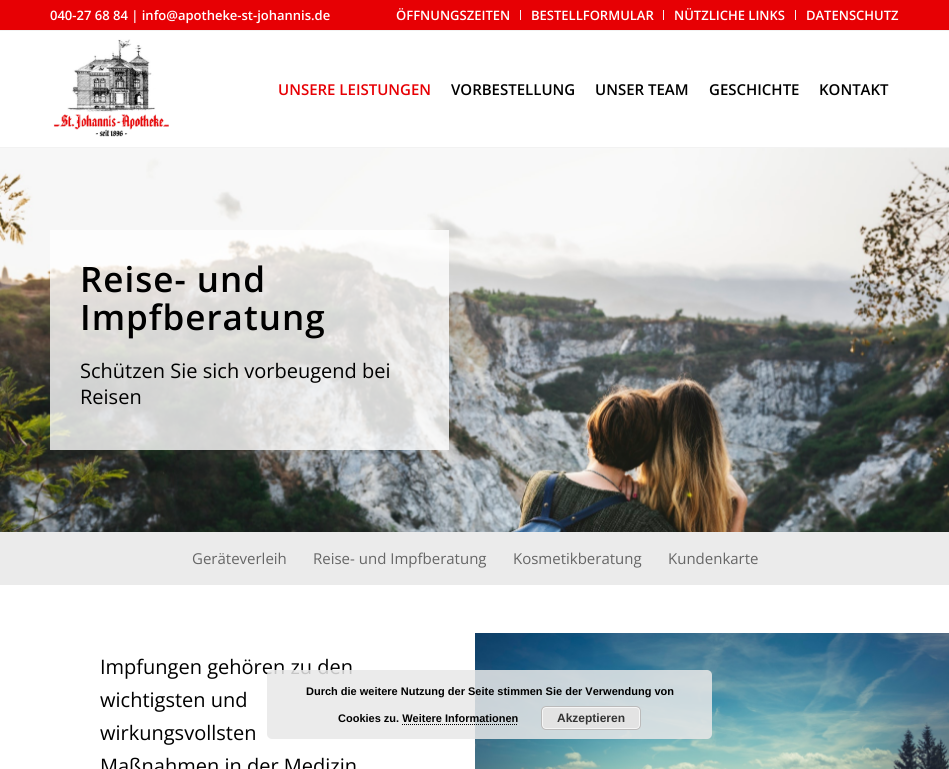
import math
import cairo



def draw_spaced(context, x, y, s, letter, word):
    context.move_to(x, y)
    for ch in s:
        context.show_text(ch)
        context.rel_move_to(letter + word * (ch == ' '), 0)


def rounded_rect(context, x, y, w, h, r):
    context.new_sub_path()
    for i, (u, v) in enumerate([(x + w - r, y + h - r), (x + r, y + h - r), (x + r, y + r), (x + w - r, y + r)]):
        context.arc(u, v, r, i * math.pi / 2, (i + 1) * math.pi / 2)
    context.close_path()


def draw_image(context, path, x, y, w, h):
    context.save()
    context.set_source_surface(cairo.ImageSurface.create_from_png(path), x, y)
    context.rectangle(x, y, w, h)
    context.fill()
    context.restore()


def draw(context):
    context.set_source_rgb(1, 1, 1)
    context.paint()
    context.set_source_rgb(231 / 255, 0, 4 / 255)
    context.rectangle(0, 0, 949, 30)
    context.fill()
    context.set_source_rgb(242 / 255, 242 / 255, 242 / 255)
    context.rectangle(0, 30, 949, 1)
    context.fill()
    context.rectangle(520, 10, 1, 10)
    context.fill()
    context.rectangle(663, 10, 1, 10)
    context.fill()
    context.rectangle(795, 10, 1, 10)
    context.fill()
    context.rectangle(0, 147, 949, 1)
    context.fill()
    draw_image(context, "images/1.png", 53, 39, 116, 98)
    draw_image(context, "images/2.png", 0, 148, 949, 384)
    context.set_source_rgba(1, 1, 1, 0.8)
    context.rectangle(50, 230, 399, 220)
    context.fill()
    context.set_source_rgb(235 / 255, 235 / 255, 235 / 255)
    context.rectangle(0, 532, 949, 53)
    context.fill()
    draw_image(context, "images/3.png", 475, 633, 474, 136)
    context.select_font_face("Open Sans SemiBold")
    context.set_font_size(13)
    context.set_source_rgb(1, 1, 1)
    context.move_to(50, 20)
    context.show_text("040-27 68 84 | info@apotheke-st-johannis.de")
    context.move_to(396, 20)
    context.show_text("ÖFFNUNGSZEITEN")
    context.move_to(531, 20)
    context.show_text("BESTELLFORMULAR")
    context.move_to(674, 20)
    context.show_text("NÜTZLICHE LINKS")
    context.move_to(806, 20)
    context.show_text("DATENSCHUTZ")
    context.set_font_size(15)
    context.set_source_rgb(231 / 255, 0, 4 / 255)
    context.move_to(278, 95)
    context.show_text("UNSERE LEISTUNGEN")
    context.set_source_rgb(0, 0, 0)
    context.move_to(451, 95)
    context.show_text("VORBESTELLUNG")
    context.move_to(595, 95)
    context.show_text("UNSER TEAM")
    context.move_to(709, 95)
    context.show_text("GESCHICHTE")
    context.move_to(819, 95)
    context.show_text("KONTAKT")
    context.set_font_size(35)
    draw_spaced(context, 80, 292, "Reise- und", 1, 0)
    draw_spaced(context, 80, 330, "Impfberatung", 1, 0)
    context.select_font_face("Open Sans")
    context.set_font_size(20)
    context.move_to(80, 378)
    context.show_text("Schützen Sie sich vorbeugend bei")
    context.move_to(80, 404)
    context.show_text("Reisen")
    context.set_font_size(15)
    context.set_source_rgb(102 / 255, 102 / 255, 102 / 255)
    context.move_to(192, 564)
    context.show_text("Geräteverleih")
    context.move_to(313, 564)
    context.show_text("Reise- und Impfberatung")
    context.move_to(513, 564)
    context.show_text("Kosmetikberatung")
    context.move_to(668, 564)
    context.show_text("Kundenkarte")
    context.set_font_size(20)
    context.set_source_rgb(0, 0, 0)
    context.move_to(100, 674)
    context.show_text("Impfungen gehören zu den")
    context.move_to(100, 707)
    context.show_text("wichtigsten und")
    context.move_to(100, 740)
    context.show_text("wirkungsvollsten")
    context.move_to(100, 773)
    context.show_text("Maßnahmen in der Medizin")
    context.set_source_rgba(232 / 255, 232 / 255, 232 / 255, 0.85)
    rounded_rect(context, 267, 670, 445, 69, 5)
    context.fill()
    context.select_font_face("Liberation Sans", cairo.FontSlant.NORMAL, cairo.FontWeight.BOLD)
    context.set_font_size(11)
    context.set_source_rgb(0, 0, 0)
    context.move_to(306, 695)
    context.show_text("Durch die weitere Nutzung der Seite stimmen Sie der Verwendung von")
    context.move_to(338, 722)
    context.show_text("Cookies zu. Weitere Informationen")
    context.set_source_rgb(227 / 255, 227 / 255, 227 / 255)
    rounded_rect(context, 541, 706, 100, 24, 5)
    context.fill()
    rounded_rect(context, 542.5, 707.5, 97, 21, 3.5)
    context.set_source_rgb(246 / 255, 246 / 255, 246 / 255)
    context.set_line_width(1)
    context.stroke()
    rounded_rect(context, 541.5, 706.5, 99, 23, 4.5)
    context.set_source_rgb(187 / 255, 187 / 255, 187 / 255)
    context.stroke()
    context.set_font_size(12)
    context.set_source_rgb(51 / 255, 51 / 255, 51 / 255)
    context.move_to(557, 722)
    context.show_text("Akzeptieren")
    context.new_path()
    context.move_to(402, 724.5)
    context.line_to(518, 724.5)
    context.set_source_rgb(2 / 255, 2 / 255, 2 / 255)
    context.set_dash([1, 1])
    context.stroke()


surface = cairo.ImageSurface(cairo.Format.RGB24, 949, 769)
context = cairo.Context(surface)
options = cairo.FontOptions()
options.set_hint_metrics(cairo.HintMetrics.OFF)
options.set_hint_style(cairo.HintStyle.NONE)
context.set_font_options(options)
context.set_miter_limit(4)
draw(context)
surface.write_to_png("out.png")
